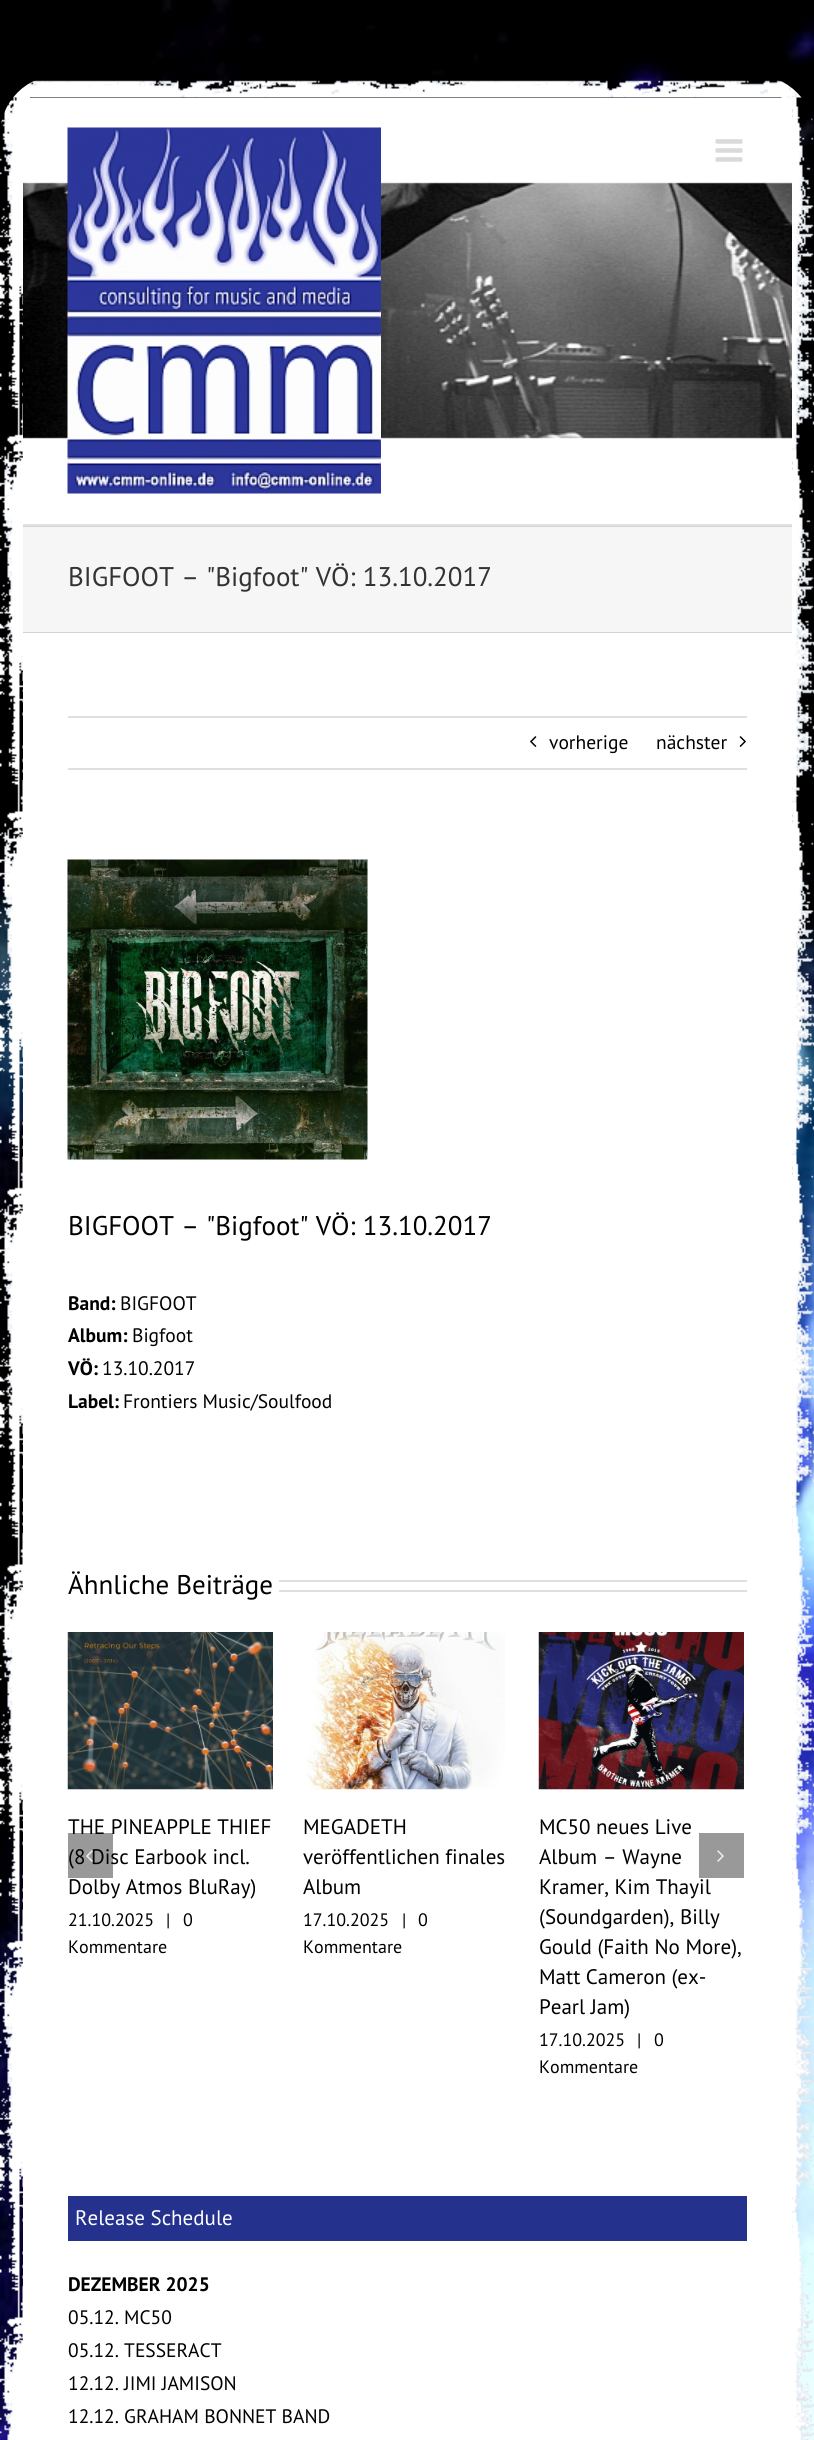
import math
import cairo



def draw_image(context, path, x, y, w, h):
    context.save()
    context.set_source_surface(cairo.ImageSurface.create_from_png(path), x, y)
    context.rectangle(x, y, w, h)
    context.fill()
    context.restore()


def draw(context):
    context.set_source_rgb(1, 1, 1)
    context.paint()
    draw_image(context, "images/1.png", 0, 0, 814, 2440)
    draw_image(context, "images/2.png", 0, 80, 814, 2360)
    context.set_source_rgb(1, 1, 1)
    context.rectangle(23, 98, 769, 426)
    context.fill()
    draw_image(context, "images/3.png", 23, 182, 769, 257)
    context.set_source_rgb(225 / 255, 225 / 255, 225 / 255)
    context.rectangle(23, 524, 769, 2)
    context.fill()
    draw_image(context, "images/4.png", 67, 127, 314, 367)
    draw_image(context, "images/5.png", 715, 139, 28, 23)
    context.set_source_rgb(246 / 255, 246 / 255, 246 / 255)
    context.rectangle(23, 527, 769, 105)
    context.fill()
    context.set_source_rgb(210 / 255, 211 / 255, 212 / 255)
    context.rectangle(23, 526, 769, 1)
    context.fill()
    context.rectangle(23, 632, 769, 1)
    context.fill()
    context.set_source_rgb(1, 1, 1)
    context.rectangle(23, 633, 769, 1807)
    context.fill()
    context.set_source_rgb(224 / 255, 222 / 255, 222 / 255)
    context.rectangle(68, 716, 679, 2)
    context.fill()
    context.rectangle(68, 768, 679, 2)
    context.fill()
    draw_image(context, "images/6.png", 530, 736, 7, 11)
    draw_image(context, "images/7.png", 739, 736, 7, 11)
    draw_image(context, "images/8.png", 67, 859, 301, 301)
    context.rectangle(279, 1580, 468, 2)
    context.fill()
    context.rectangle(279, 1590, 468, 2)
    context.fill()
    draw_image(context, "images/9.png", 67, 1632, 206, 158)
    draw_image(context, "images/10.png", 306, 1632, 199, 158)
    draw_image(context, "images/11.png", 538, 1632, 206, 158)
    context.set_source_rgb(153 / 255, 153 / 255, 153 / 255)
    context.rectangle(699, 1833, 45, 45)
    context.fill()
    draw_image(context, "images/13.png", 717, 1850, 7, 12)
    context.set_source_rgb(36 / 255, 49 / 255, 141 / 255)
    context.rectangle(68, 2196, 679, 45)
    context.fill()
    context.select_font_face("PT Sans")
    context.set_font_size(27)
    context.set_source_rgb(51 / 255, 51 / 255, 51 / 255)
    context.move_to(68, 586)
    context.show_text("BIGFOOT – \"Bigfoot\" VÖ: 13.10.2017")
    context.set_font_size(19.5)
    context.set_source_rgb(0, 0, 0)
    context.move_to(549, 749)
    context.show_text("vorherige")
    context.move_to(656, 749)
    context.show_text("nächster")
    context.set_font_size(27)
    context.move_to(68, 1235)
    context.show_text("BIGFOOT – \"Bigfoot\" VÖ: 13.10.2017")
    context.select_font_face("PT Sans", cairo.FontSlant.NORMAL, cairo.FontWeight.BOLD)
    context.set_font_size(19.5)
    context.move_to(68, 1310)
    context.show_text("Band:")
    context.select_font_face("PT Sans")
    context.move_to(120, 1310)
    context.show_text("BIGFOOT")
    context.select_font_face("PT Sans", cairo.FontSlant.NORMAL, cairo.FontWeight.BOLD)
    context.move_to(68, 1342)
    context.show_text("Album:")
    context.select_font_face("PT Sans")
    context.move_to(132, 1342)
    context.show_text("Bigfoot")
    context.select_font_face("PT Sans", cairo.FontSlant.NORMAL, cairo.FontWeight.BOLD)
    context.move_to(68, 1375)
    context.show_text("VÖ:")
    context.select_font_face("PT Sans")
    context.move_to(102, 1375)
    context.show_text("13.10.2017")
    context.select_font_face("PT Sans", cairo.FontSlant.NORMAL, cairo.FontWeight.BOLD)
    context.move_to(68, 1408)
    context.show_text("Label:")
    context.select_font_face("PT Sans")
    context.move_to(123, 1408)
    context.show_text("Frontiers Music/Soulfood")
    context.set_font_size(27)
    context.move_to(68, 1594)
    context.show_text("Ähnliche Beiträge")
    context.set_font_size(21)
    context.move_to(68, 1834)
    context.show_text("THE PINEAPPLE THIEF")
    context.move_to(68, 1864)
    context.show_text("(8 Disc Earbook incl.")
    context.move_to(68, 1894)
    context.show_text("Dolby Atmos BluRay)")
    context.set_font_size(18)
    context.move_to(68, 1926)
    context.show_text("21.10.2025")
    context.move_to(166, 1926)
    context.show_text("|")
    context.move_to(183, 1926)
    context.show_text("0")
    context.move_to(68, 1953)
    context.show_text("Kommentare")
    context.set_font_size(21)
    context.move_to(303, 1834)
    context.show_text("MEGADETH")
    context.move_to(303, 1864)
    context.show_text("veröffentlichen finales")
    context.move_to(303, 1894)
    context.show_text("Album")
    context.set_font_size(18)
    context.move_to(303, 1926)
    context.show_text("17.10.2025")
    context.move_to(402, 1926)
    context.show_text("|")
    context.move_to(418, 1926)
    context.show_text("0")
    context.move_to(303, 1953)
    context.show_text("Kommentare")
    context.set_font_size(21)
    context.move_to(539, 1834)
    context.show_text("MC50 neues Live")
    context.move_to(539, 1864)
    context.show_text("Album – Wayne")
    context.move_to(539, 1894)
    context.show_text("Kramer, Kim Thayil")
    context.move_to(539, 1924)
    context.show_text("(Soundgarden), Billy")
    context.move_to(539, 1954)
    context.show_text("Gould (Faith No More),")
    context.move_to(539, 1984)
    context.show_text("Matt Cameron (ex-")
    context.move_to(539, 2014)
    context.show_text("Pearl Jam)")
    context.set_font_size(18)
    context.move_to(539, 2046)
    context.show_text("17.10.2025")
    context.move_to(637, 2046)
    context.show_text("|")
    context.move_to(654, 2046)
    context.show_text("0")
    context.move_to(539, 2073)
    context.show_text("Kommentare")
    context.set_source_rgba(0, 0, 0, 0.4)
    context.rectangle(68, 1833, 45, 45)
    context.fill()
    draw_image(context, "images/12.png", 86, 1850, 7, 12)
    context.set_font_size(21)
    context.set_source_rgb(1, 1, 1)
    context.move_to(75, 2225)
    context.show_text("Release Schedule")
    context.select_font_face("PT Sans", cairo.FontSlant.NORMAL, cairo.FontWeight.BOLD)
    context.set_font_size(19.5)
    context.set_source_rgb(0, 0, 0)
    context.move_to(68, 2291)
    context.show_text("DEZEMBER 2025")
    context.select_font_face("PT Sans")
    context.move_to(68, 2324)
    context.show_text("05.12. MC50")
    context.move_to(68, 2357)
    context.show_text("05.12. TESSERACT")
    context.move_to(68, 2390)
    context.show_text("12.12. JIMI JAMISON")
    context.move_to(68, 2423)
    context.show_text("12.12. GRAHAM BONNET BAND")


surface = cairo.ImageSurface(cairo.Format.RGB24, 814, 2440)
context = cairo.Context(surface)
options = cairo.FontOptions()
options.set_hint_metrics(cairo.HintMetrics.OFF)
options.set_hint_style(cairo.HintStyle.NONE)
context.set_font_options(options)
context.set_miter_limit(4)
draw(context)
surface.write_to_png("out.png")
